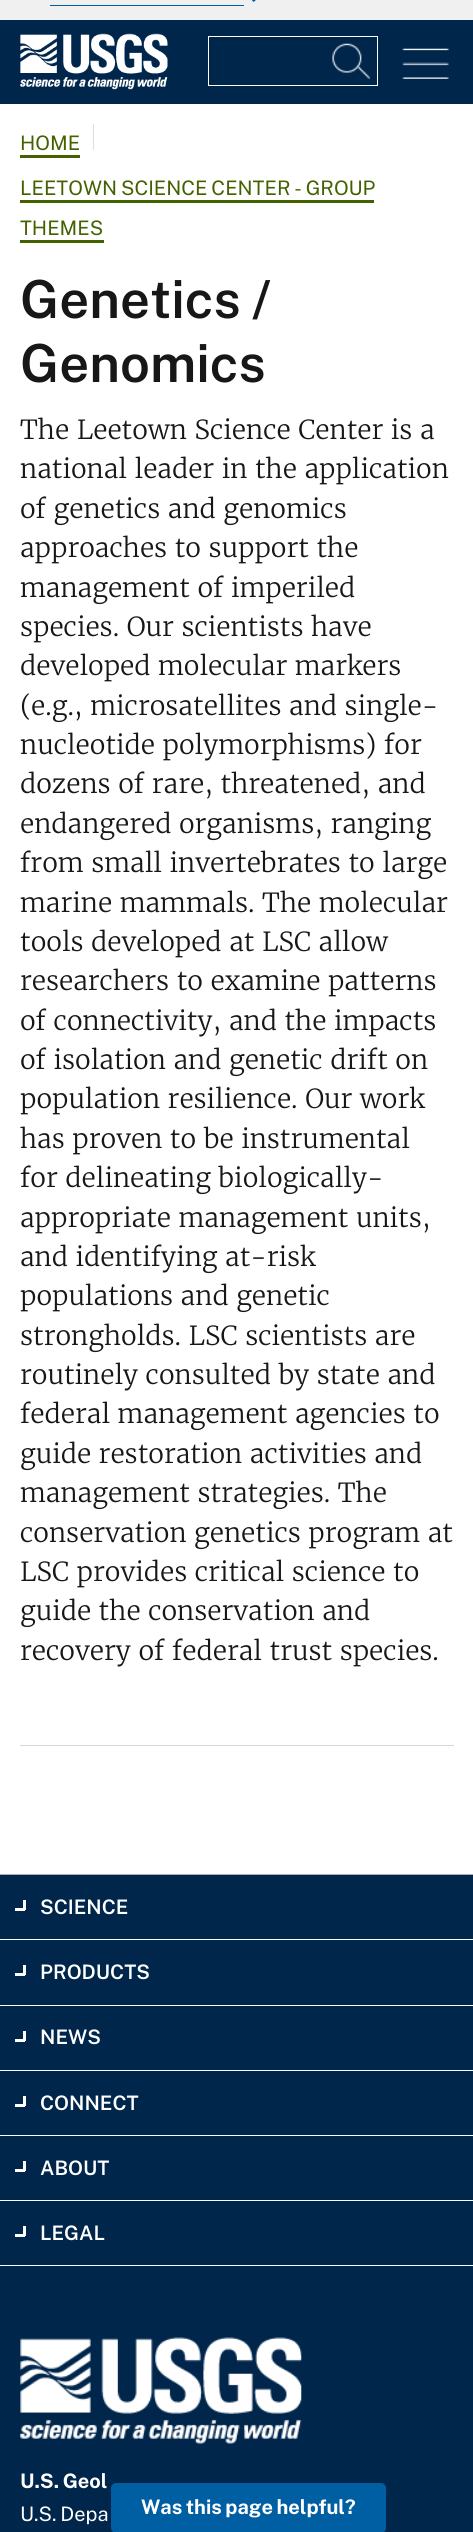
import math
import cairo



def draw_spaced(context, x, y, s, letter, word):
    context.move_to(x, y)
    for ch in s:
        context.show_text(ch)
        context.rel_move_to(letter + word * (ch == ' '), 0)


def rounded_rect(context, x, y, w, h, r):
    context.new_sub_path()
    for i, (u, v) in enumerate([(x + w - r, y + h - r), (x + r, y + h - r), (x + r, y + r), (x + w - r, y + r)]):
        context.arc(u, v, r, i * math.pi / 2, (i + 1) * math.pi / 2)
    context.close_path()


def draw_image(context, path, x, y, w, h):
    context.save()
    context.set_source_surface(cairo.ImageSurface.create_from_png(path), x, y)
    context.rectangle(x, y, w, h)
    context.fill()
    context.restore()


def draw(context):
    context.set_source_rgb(1, 1, 1)
    context.paint()
    context.set_source_rgb(240 / 255, 240 / 255, 240 / 255)
    context.rectangle(0, 0, 473, 20)
    context.fill()
    draw_image(context, "images/1.png", 251, 0, 5, 2)
    context.set_source_rgb(0, 94 / 255, 162 / 255)
    context.rectangle(50, 5, 194, 1)
    context.fill()
    context.set_source_rgb(0, 38 / 255, 76 / 255)
    context.rectangle(0, 20, 473, 84)
    context.fill()
    draw_image(context, "images/2.png", 20, 33, 148, 57)
    context.rectangle(208.5, 36.5, 169, 49)
    context.set_source_rgb(1, 1, 1)
    context.set_line_width(1)
    context.stroke()
    draw_image(context, "images/3.png", 332, 43, 38, 36)
    draw_image(context, "images/4.png", 402, 48, 47, 31)
    context.set_source_rgb(68 / 255, 97 / 255, 0)
    context.rectangle(20, 155, 60, 3)
    context.fill()
    context.set_source_rgb(221 / 255, 221 / 255, 221 / 255)
    context.rectangle(93, 124, 1, 26)
    context.fill()
    context.set_source_rgb(68 / 255, 97 / 255, 0)
    context.rectangle(20, 200, 354, 3)
    context.fill()
    context.rectangle(20, 240, 84, 3)
    context.fill()
    context.set_source_rgb(214 / 255, 215 / 255, 217 / 255)
    context.rectangle(20, 1745, 434, 1)
    context.fill()
    context.set_source_rgb(0, 38 / 255, 76 / 255)
    context.rectangle(0, 1875, 473, 390)
    context.fill()
    context.set_source_rgb(169 / 255, 174 / 255, 177 / 255)
    context.rectangle(0, 1874, 473, 1)
    context.fill()
    context.set_source_rgb(1, 1, 1)
    context.rectangle(0, 1939, 473, 1)
    context.fill()
    context.rectangle(23, 1900, 3, 10)
    context.fill()
    context.rectangle(15, 1908, 10, 3)
    context.fill()
    context.rectangle(0, 2005, 473, 1)
    context.fill()
    context.rectangle(23, 1965, 3, 10)
    context.fill()
    context.rectangle(15, 1973, 10, 3)
    context.fill()
    context.rectangle(0, 2070, 473, 1)
    context.fill()
    context.rectangle(23, 2031, 3, 10)
    context.fill()
    context.rectangle(15, 2039, 10, 3)
    context.fill()
    context.rectangle(0, 2135, 473, 1)
    context.fill()
    context.rectangle(23, 2096, 3, 10)
    context.fill()
    context.rectangle(15, 2104, 10, 3)
    context.fill()
    context.rectangle(0, 2200, 473, 1)
    context.fill()
    context.rectangle(23, 2161, 3, 10)
    context.fill()
    context.rectangle(15, 2169, 10, 3)
    context.fill()
    context.rectangle(23, 2226, 3, 10)
    context.fill()
    context.rectangle(15, 2234, 10, 3)
    context.fill()
    context.set_source_rgb(0, 38 / 255, 76 / 255)
    context.rectangle(0, 2266, 473, 266)
    context.fill()
    draw_image(context, "images/5.png", 20, 2337, 282, 107)
    context.set_source_rgb(0, 94 / 255, 162 / 255)
    rounded_rect(context, 111, 2483, 275, 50, 5)
    context.fill()
    context.select_font_face("Public Sans")
    context.set_font_size(20)
    context.set_source_rgb(68 / 255, 97 / 255, 0)
    context.move_to(20, 150)
    context.show_text("HOME")
    draw_spaced(context, 20, 195, "LEETOWN SCIENCE CENTER - GROUP", 0, -1)
    context.move_to(20, 235)
    context.show_text("THEMES")
    context.select_font_face("Public Sans SemiBold")
    context.set_font_size(52.5)
    context.set_source_rgb(23 / 255, 23 / 255, 23 / 255)
    draw_spaced(context, 20, 318, "Genetics /", 0, -1)
    context.move_to(20, 382)
    context.show_text("Genomics")
    context.select_font_face("Merriweather Light")
    context.set_font_size(26.25)
    context.move_to(20, 439)
    context.show_text("The Leetown Science Center is a")
    context.move_to(20, 478)
    context.show_text("national leader in the application")
    context.move_to(20, 518)
    context.show_text("of genetics and genomics")
    context.move_to(20, 557)
    context.show_text("approaches to support the")
    context.move_to(20, 597)
    context.show_text("management of imperiled")
    context.move_to(20, 636)
    context.show_text("species. Our scientists have")
    context.move_to(20, 675)
    context.show_text("developed molecular markers")
    context.move_to(20, 715)
    context.show_text("(e.g., microsatellites and single-")
    context.move_to(20, 754)
    context.show_text("nucleotide polymorphisms) for")
    context.move_to(20, 793)
    context.show_text("dozens of rare, threatened, and")
    context.move_to(20, 833)
    context.show_text("endangered organisms, ranging")
    context.move_to(20, 872)
    context.show_text("from small invertebrates to large")
    context.move_to(20, 912)
    context.show_text("marine mammals. The molecular")
    context.move_to(20, 951)
    context.show_text("tools developed at LSC allow")
    context.move_to(20, 990)
    context.show_text("researchers to examine patterns")
    context.move_to(20, 1030)
    context.show_text("of connectivity, and the impacts")
    context.move_to(20, 1069)
    context.show_text("of isolation and genetic drift on")
    context.move_to(20, 1108)
    context.show_text("population resilience. Our work")
    context.move_to(20, 1148)
    context.show_text("has proven to be instrumental")
    context.move_to(20, 1187)
    context.show_text("for delineating biologically-")
    context.move_to(20, 1227)
    context.show_text("appropriate management units,")
    context.move_to(20, 1266)
    context.show_text("and identifying at-risk")
    context.move_to(20, 1305)
    context.show_text("populations and genetic")
    context.move_to(20, 1345)
    context.show_text("strongholds. LSC scientists are")
    context.move_to(20, 1384)
    context.show_text("routinely consulted by state and")
    context.move_to(20, 1423)
    context.show_text("federal management agencies to")
    context.move_to(20, 1463)
    context.show_text("guide restoration activities and")
    context.move_to(20, 1502)
    context.show_text("management strategies. The")
    context.move_to(20, 1542)
    context.show_text("conservation genetics program at")
    context.move_to(20, 1581)
    context.show_text("LSC provides critical science to")
    context.move_to(20, 1620)
    context.show_text("guide the conservation and")
    context.move_to(20, 1660)
    context.show_text("recovery of federal trust species.")
    context.select_font_face("Public Sans SemiBold")
    context.set_font_size(20)
    context.set_source_rgb(1, 1, 1)
    context.move_to(40, 1914)
    context.show_text("SCIENCE")
    context.move_to(40, 1979)
    context.show_text("PRODUCTS")
    context.move_to(40, 2044)
    context.show_text("NEWS")
    context.move_to(40, 2110)
    context.show_text("CONNECT")
    context.move_to(40, 2175)
    context.show_text("ABOUT")
    context.move_to(40, 2240)
    context.show_text("LEGAL")
    context.select_font_face("Public Sans", cairo.FontSlant.NORMAL, cairo.FontWeight.BOLD)
    draw_spaced(context, 20, 2488, "U.S. Geol", 0, -1)
    context.select_font_face("Public Sans")
    draw_spaced(context, 20, 2521, "U.S. Depa", 0, -1)
    context.select_font_face("Public Sans", cairo.FontSlant.NORMAL, cairo.FontWeight.BOLD)
    draw_spaced(context, 141, 2514, "Was this page helpful?", 0, -1)


surface = cairo.ImageSurface(cairo.Format.RGB24, 473, 2532)
context = cairo.Context(surface)
options = cairo.FontOptions()
options.set_hint_metrics(cairo.HintMetrics.OFF)
options.set_hint_style(cairo.HintStyle.NONE)
context.set_font_options(options)
context.set_miter_limit(4)
draw(context)
surface.write_to_png("out.png")
